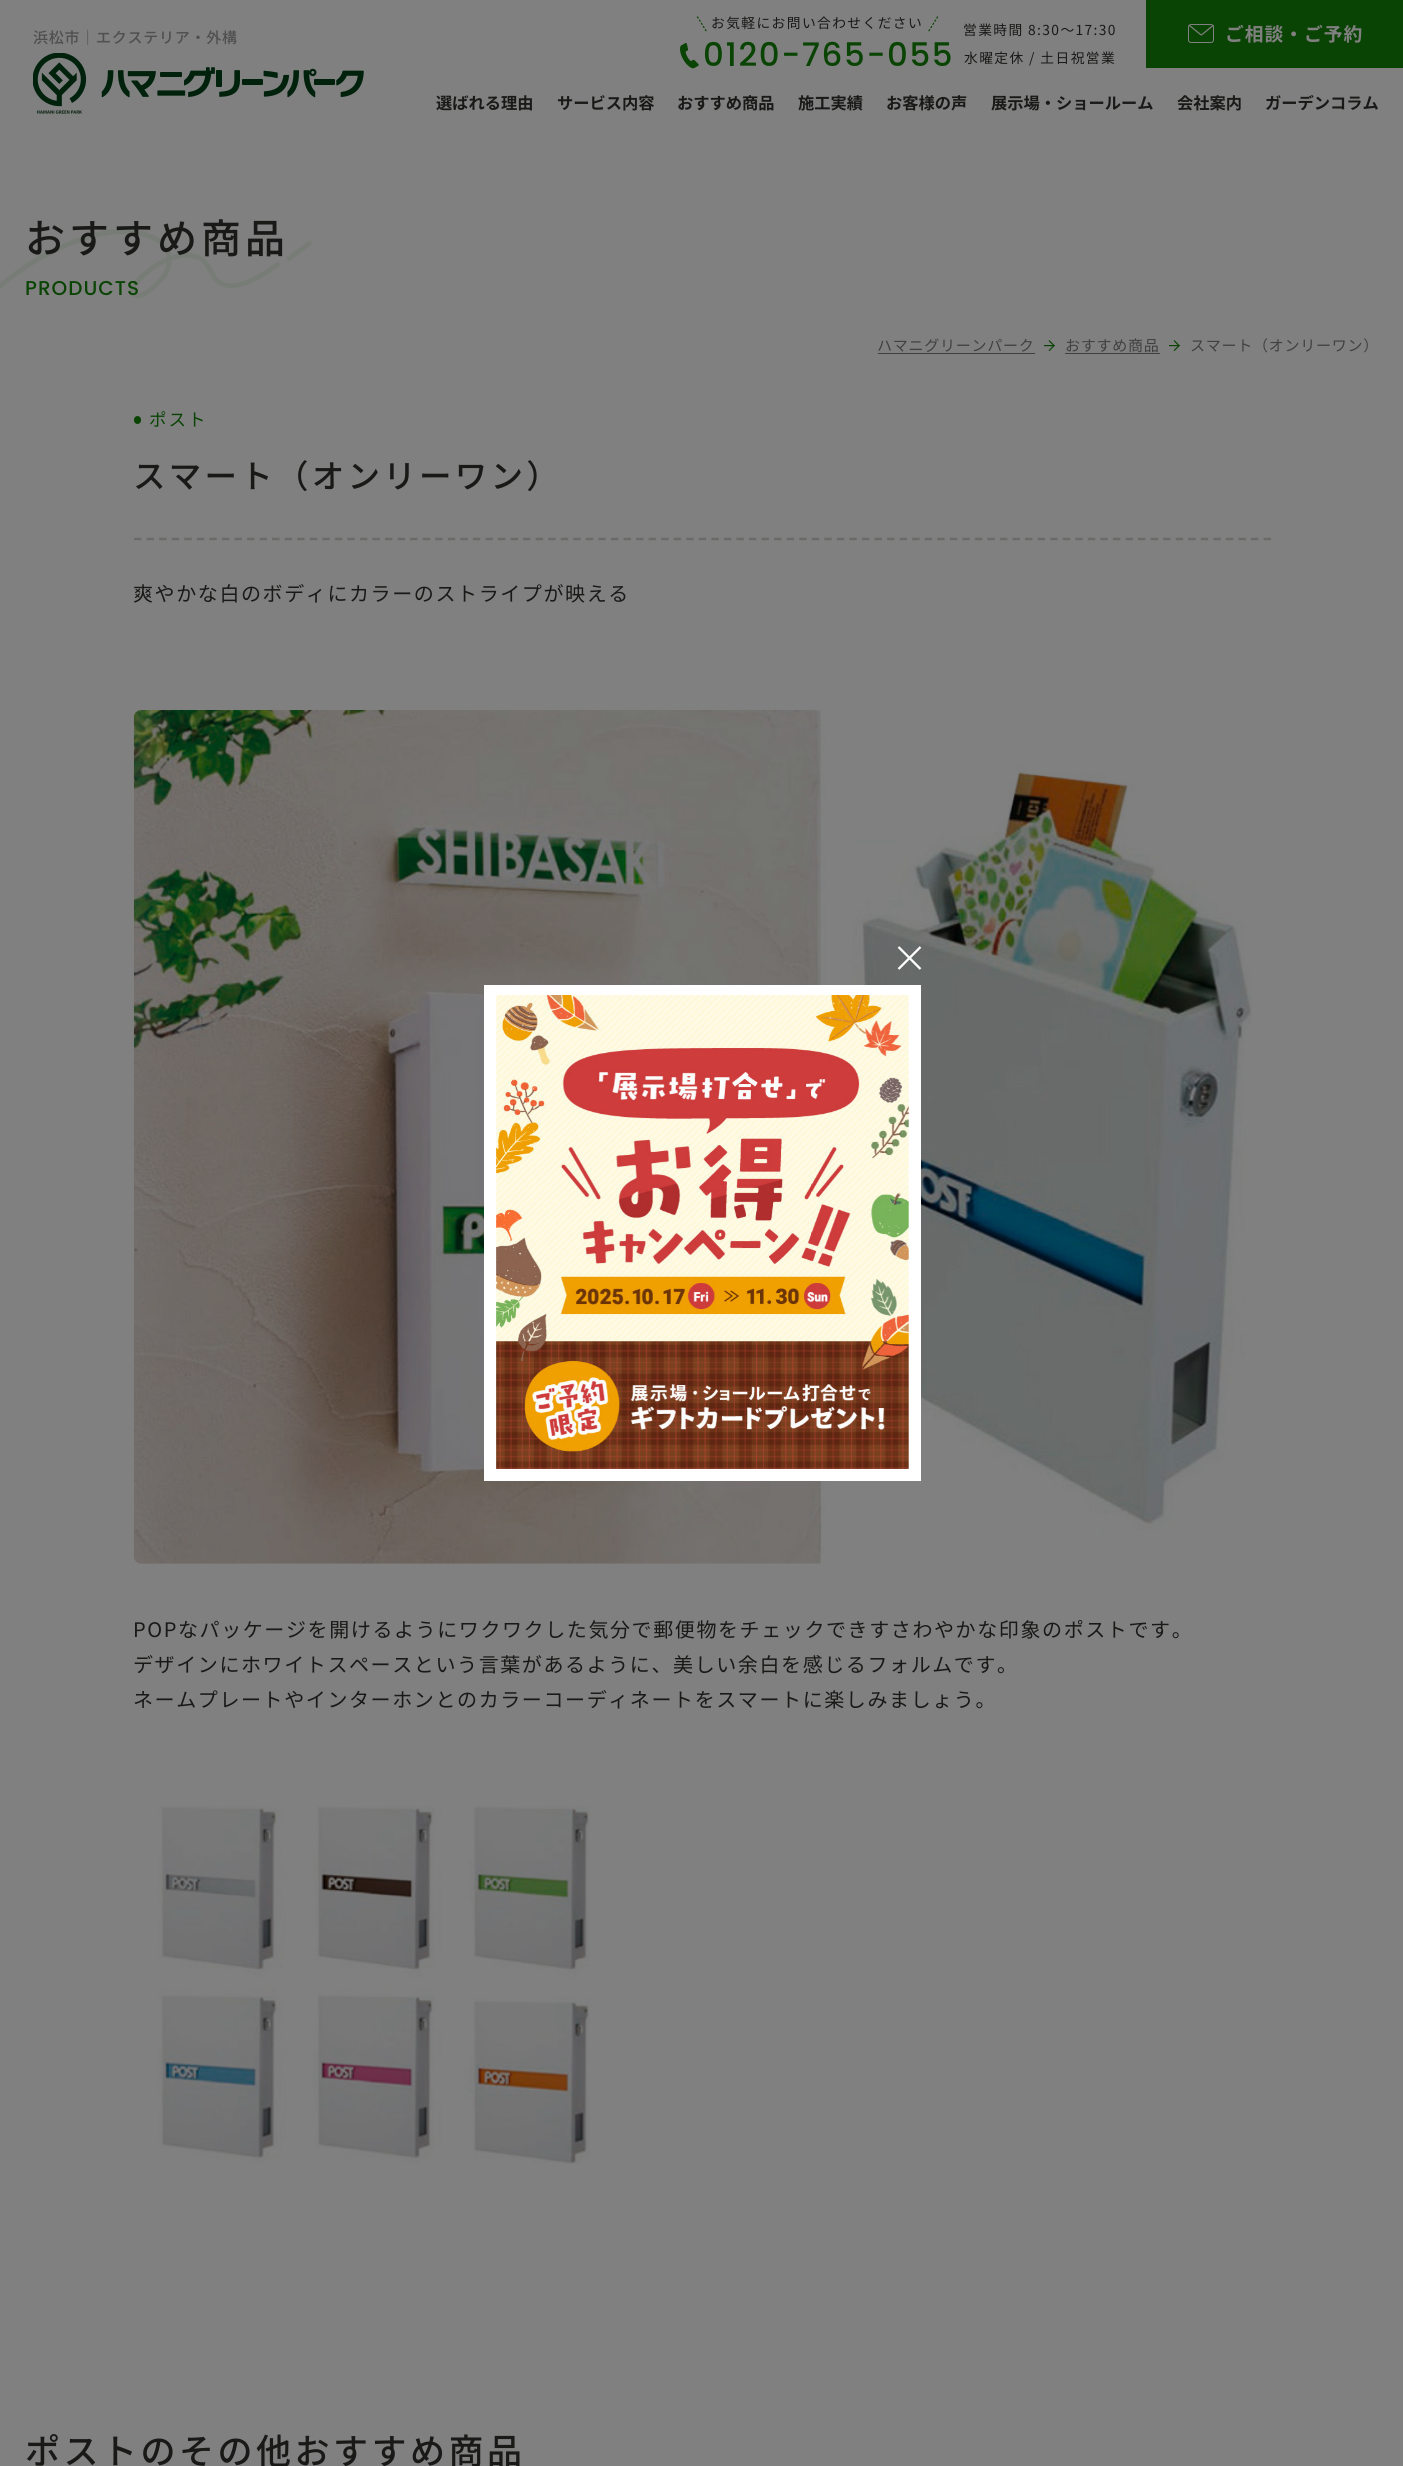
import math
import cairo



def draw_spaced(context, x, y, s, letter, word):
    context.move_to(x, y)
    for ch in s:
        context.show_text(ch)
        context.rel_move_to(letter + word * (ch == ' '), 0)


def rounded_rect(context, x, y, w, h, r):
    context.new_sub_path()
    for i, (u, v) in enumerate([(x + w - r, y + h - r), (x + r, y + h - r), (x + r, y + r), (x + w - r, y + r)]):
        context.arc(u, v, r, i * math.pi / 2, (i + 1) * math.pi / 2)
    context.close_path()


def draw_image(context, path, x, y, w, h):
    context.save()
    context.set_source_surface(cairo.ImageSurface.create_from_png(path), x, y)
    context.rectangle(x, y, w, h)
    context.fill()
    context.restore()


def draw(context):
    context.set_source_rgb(128 / 255, 128 / 255, 128 / 255)
    context.paint()
    draw_image(context, "images/1.png", 33, 53, 331, 61)
    context.new_path()
    context.move_to(937.5, 17)
    context.line_to(928.5, 31.5)
    context.set_source_rgb(10 / 255, 68 / 255, 4 / 255)
    context.set_line_width(1.2)
    context.set_line_cap(cairo.LineCap.ROUND)
    context.set_dash([1.24, 2.49])
    context.stroke()
    context.new_path()
    context.move_to(697.5, 17)
    context.line_to(706.5, 31.5)
    context.stroke()
    draw_image(context, "images/2.png", 680, 43, 19, 26)
    context.rectangle(1146, 0, 257, 68)
    context.fill()
    rounded_rect(context, 1188.5, 24.5, 25, 18, 2.5)
    context.set_source_rgb(128 / 255, 128 / 255, 128 / 255)
    context.set_line_width(1)
    context.set_line_cap(cairo.LineCap.BUTT)
    context.set_dash([])
    context.stroke()
    context.new_path()
    context.move_to(1213, 25.5)
    context.line_to(1202, 34.5)
    context.curve_to(1201.5, 35, 1201, 35, 1200.5, 34.5)
    context.line_to(1189.5, 25.5)
    context.set_line_width(1.2)
    context.set_line_cap(cairo.LineCap.ROUND)
    context.set_line_join(cairo.LineJoin.ROUND)
    context.stroke()
    context.new_path()
    context.move_to(-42, 345)
    context.curve_to(-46, 334, -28, 315, -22, 308)
    context.curve_to(1, 281, 35, 258, 67.5, 244.5)
    context.curve_to(93.5, 233.5, 127.5, 225, 154, 238)
    context.curve_to(170.5, 246, 173.5, 262, 163.5, 276.5)
    context.curve_to(160.5, 281.5, 142, 300.5, 134, 294.5)
    context.curve_to(124.5, 287.5, 151.5, 268.5, 156, 265.5)
    context.curve_to(167.5, 258.5, 183.5, 252, 197, 257)
    context.curve_to(207, 261, 209, 269, 214.5, 277.5)
    context.curve_to(228.5, 297.5, 262.5, 276, 277.5, 264.5)
    context.set_source_rgb(120 / 255, 124 / 255, 118 / 255)
    context.set_line_width(5)
    context.stroke()
    context.new_path()
    context.move_to(289, 258.5)
    context.line_to(309, 243.5)
    context.stroke()
    context.set_source_rgb(64 / 255, 64 / 255, 64 / 255)
    context.rectangle(878, 353, 157, 1)
    context.fill()
    draw_image(context, "images/3.png", 1044, 340, 11, 11)
    context.rectangle(1065, 353, 95, 1)
    context.fill()
    draw_image(context, "images/3.png", 1169, 340, 11, 11)
    context.set_source_rgb(10 / 255, 68 / 255, 4 / 255)
    rounded_rect(context, 134, 416, 7, 8, 3.5)
    context.fill()
    context.new_path()
    context.move_to(134, 539)
    context.line_to(1271, 539)
    context.set_source_rgb(106 / 255, 107 / 255, 105 / 255)
    context.set_line_width(2.5)
    context.set_line_cap(cairo.LineCap.BUTT)
    context.set_line_join(cairo.LineJoin.MITER)
    context.set_dash([7.5, 5.05])
    context.stroke()
    draw_image(context, "images/4.png", 133, 710, 1119, 854)
    draw_image(context, "images/5.png", 157, 1806, 433, 358)
    context.set_source_rgb(1, 1, 1)
    context.rectangle(484, 985, 437, 496)
    context.fill()
    context.new_path()
    context.move_to(898.5, 947)
    context.line_to(920.5, 969)
    context.move_to(898.5, 969)
    context.line_to(920.5, 947)
    context.set_line_width(2.3)
    context.set_dash([])
    context.stroke()
    draw_image(context, "images/6.png", 496, 995, 413, 474)
    context.select_font_face("Noto Sans JP Medium")
    context.set_font_size(15)
    context.set_source_rgb(79 / 255, 79 / 255, 79 / 255)
    draw_spaced(context, 33, 43, "浜松市｜エクステリア・外構", 0.75, 0)
    context.select_font_face("Noto Sans JP")
    context.set_font_size(13.75)
    context.set_source_rgb(25 / 255, 26 / 255, 24 / 255)
    draw_spaced(context, 711, 28, "お気軽にお問い合わせください", 1.4, 0)
    context.select_font_face("Poppins Medium")
    context.set_font_size(32.5)
    context.set_source_rgb(10 / 255, 68 / 255, 4 / 255)
    draw_spaced(context, 703, 66, "0120-765-055", 1.6, 0)
    context.select_font_face("Noto Sans JP")
    context.set_font_size(13.75)
    context.set_source_rgb(25 / 255, 26 / 255, 24 / 255)
    draw_spaced(context, 963, 35, "営業時間 8:30〜17:30", 1.4, 0)
    draw_spaced(context, 964, 63, "水曜定休 / 土日祝営業", 1.4, 0)
    context.select_font_face("Noto Sans JP", cairo.FontSlant.NORMAL, cairo.FontWeight.BOLD)
    context.set_font_size(18.75)
    context.set_source_rgb(128 / 255, 128 / 255, 128 / 255)
    draw_spaced(context, 1225, 41, "ご相談・ご予約", 1, 0)
    context.set_font_size(16.25)
    context.set_source_rgb(25 / 255, 26 / 255, 24 / 255)
    context.move_to(436, 109)
    context.show_text("選ばれる理由")
    context.move_to(557, 109)
    context.show_text("サービス内容")
    context.move_to(677, 109)
    context.show_text("おすすめ商品")
    context.move_to(798, 109)
    context.show_text("施工実績")
    context.move_to(886, 109)
    context.show_text("お客様の声")
    context.move_to(991, 109)
    context.show_text("展示場・ショールーム")
    context.move_to(1177, 109)
    context.show_text("会社案内")
    context.move_to(1265, 109)
    context.show_text("ガーデンコラム")
    context.select_font_face("Noto Sans JP Medium")
    context.set_font_size(40)
    draw_spaced(context, 25, 253, "おすすめ商品", 4, 0)
    context.select_font_face("Poppins Medium")
    context.set_font_size(20)
    context.set_source_rgb(10 / 255, 68 / 255, 4 / 255)
    draw_spaced(context, 25, 295, "PRODUCTS", 1, 0)
    context.select_font_face("Noto Sans JP")
    context.set_font_size(15)
    context.set_source_rgb(64 / 255, 64 / 255, 64 / 255)
    draw_spaced(context, 877, 351, "ハマニグリーンパーク", 0.75, 0)
    draw_spaced(context, 1065, 351, "おすすめ商品", 0.75, 0)
    draw_spaced(context, 1190, 351, "スマート（オンリーワン）", 0.75, 0)
    context.set_font_size(17.5)
    context.set_source_rgb(10 / 255, 68 / 255, 4 / 255)
    draw_spaced(context, 149, 426, "ポスト", 2, 0)
    context.select_font_face("Noto Sans JP Medium")
    context.set_font_size(32.5)
    context.set_source_rgb(25 / 255, 26 / 255, 24 / 255)
    draw_spaced(context, 133, 488, "スマート（オンリーワン）", 3.25, 0)
    context.select_font_face("Noto Sans JP")
    context.set_font_size(20)
    draw_spaced(context, 133, 601, "爽やかな白のボディにカラーのストライプが映える", 1.6, 0)
    draw_spaced(context, 133, 1637, "POPなパッケージを開けるようにワクワクした気分で郵便物をチェックできすさわやかな印象のポストです。", 1.6, 0)
    draw_spaced(context, 133, 1672, "デザインにホワイトスペースという言葉があるように、美しい余白を感じるフォルムです。", 1.6, 0)
    draw_spaced(context, 133, 1707, "ネームプレートやインターホンとのカラーコーディネートをスマートに楽しみましょう。", 1.6, 0)
    context.select_font_face("Noto Sans JP Medium")
    context.set_font_size(35)
    draw_spaced(context, 25, 2464, "ポストのその他おすすめ商品", 3.5, 0)


surface = cairo.ImageSurface(cairo.Format.RGB24, 1403, 2466)
context = cairo.Context(surface)
options = cairo.FontOptions()
options.set_hint_metrics(cairo.HintMetrics.OFF)
options.set_hint_style(cairo.HintStyle.NONE)
context.set_font_options(options)
context.set_miter_limit(4)
draw(context)
surface.write_to_png("out.png")
